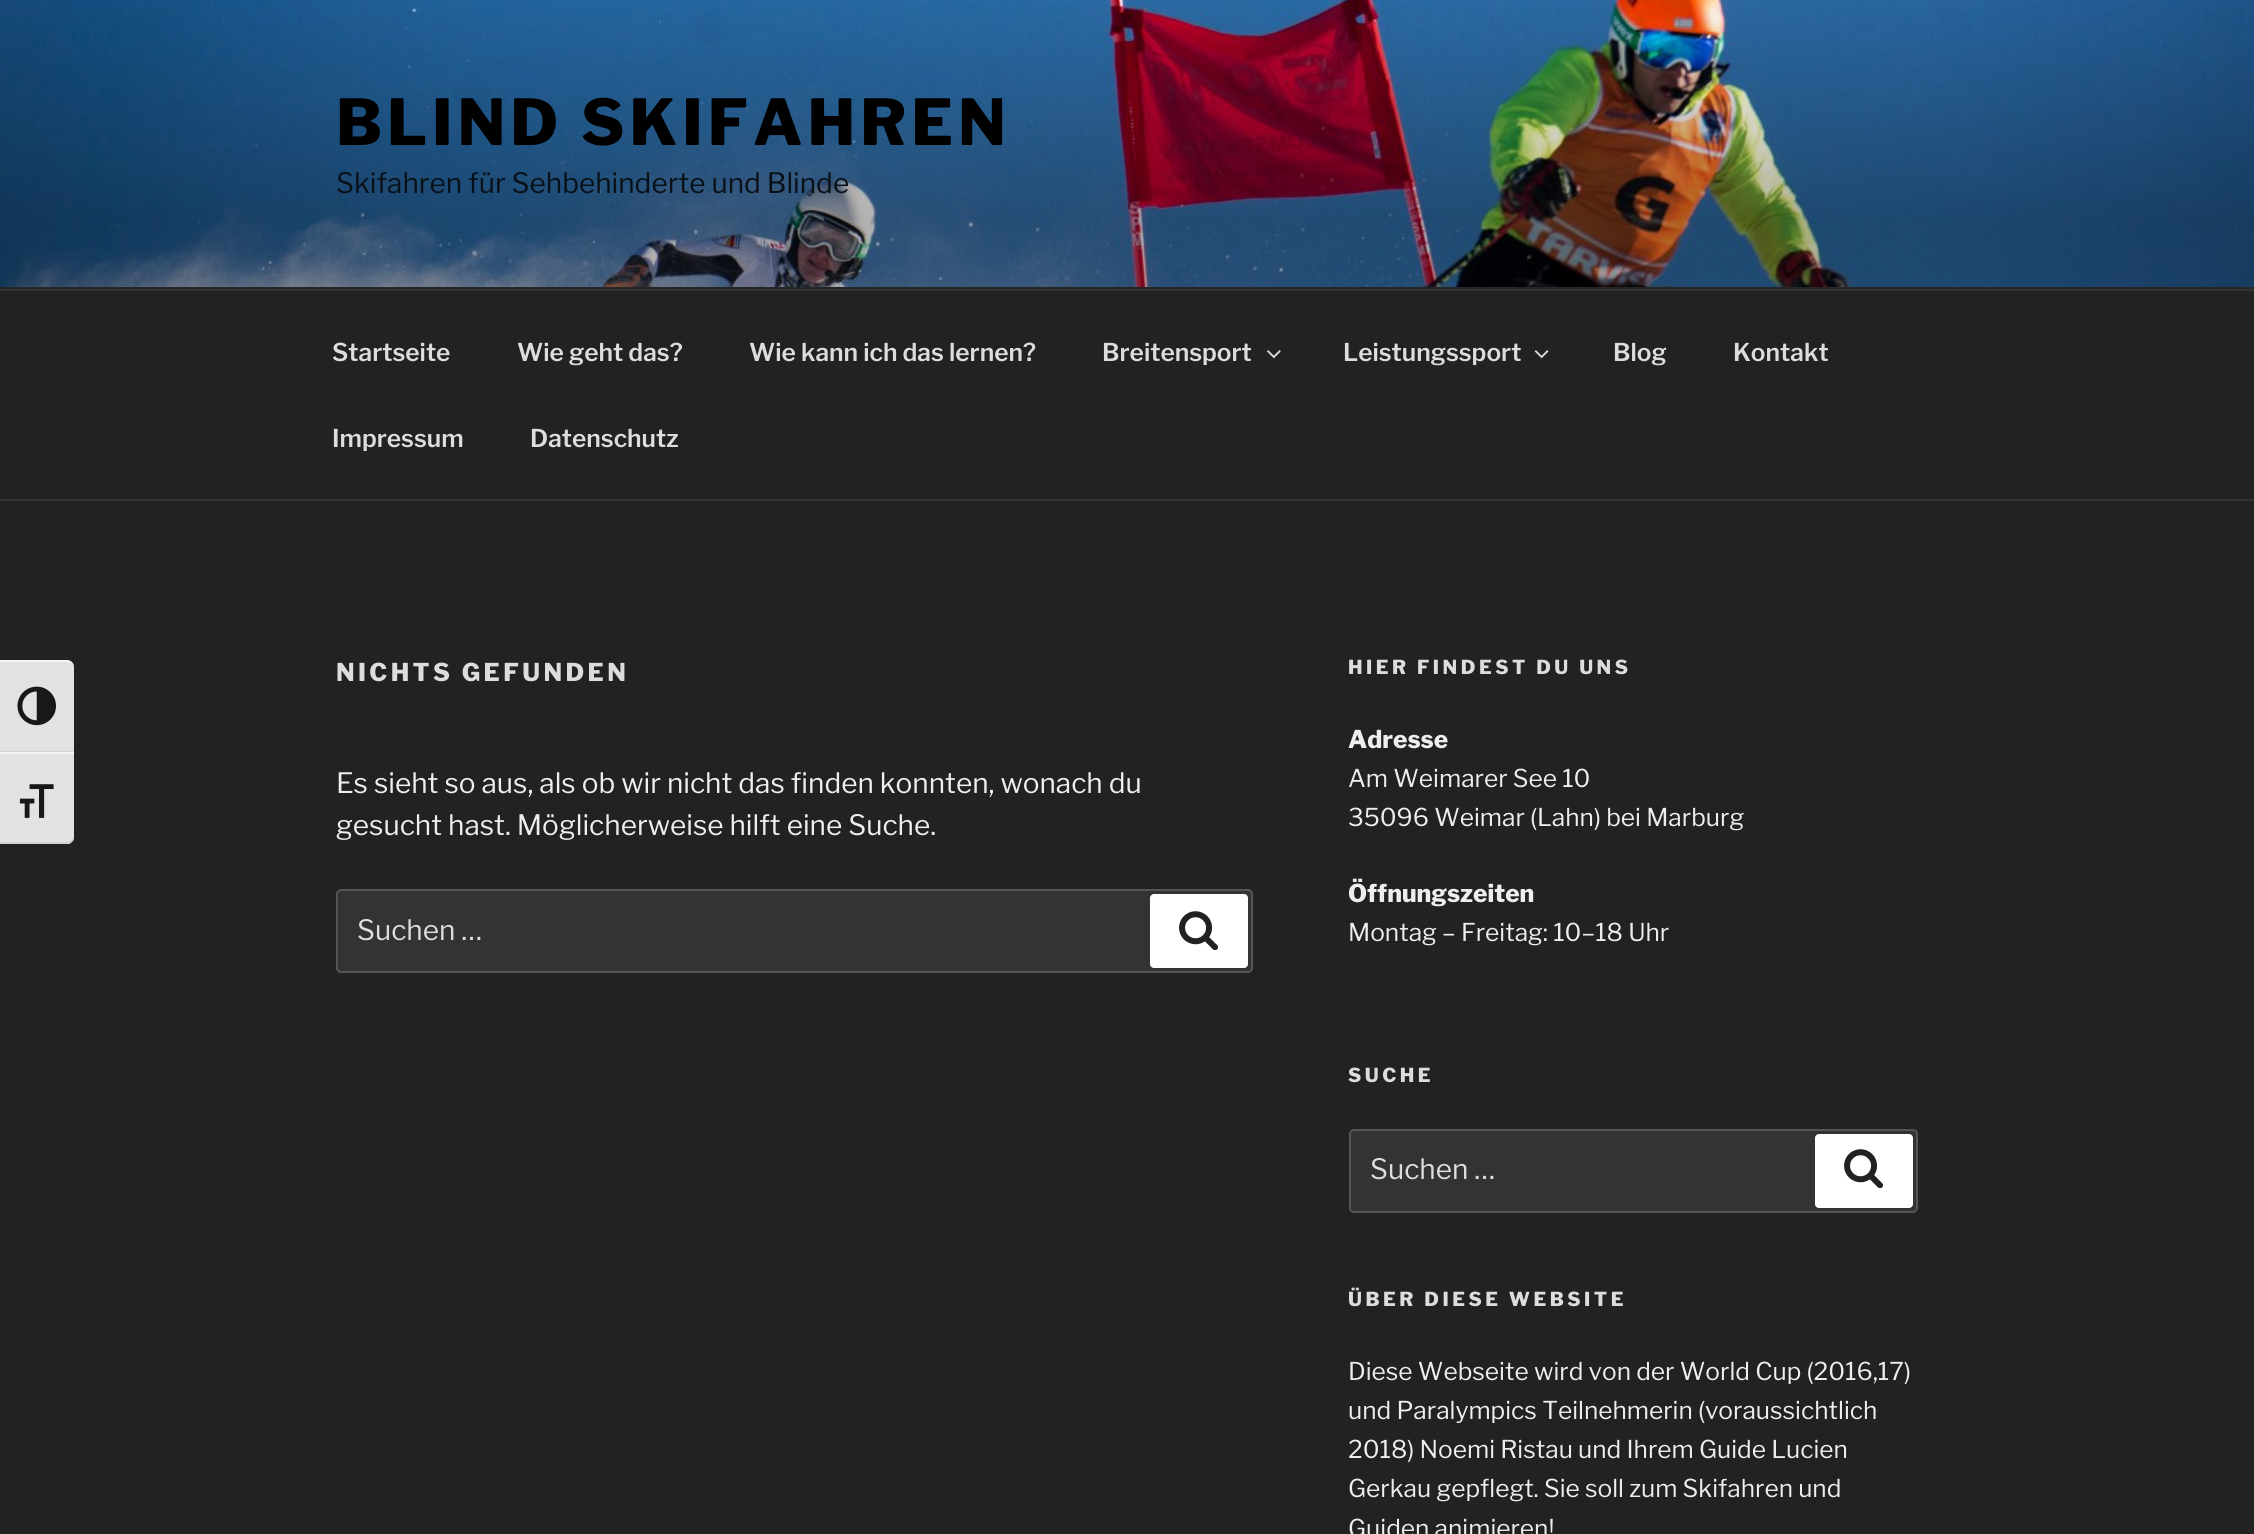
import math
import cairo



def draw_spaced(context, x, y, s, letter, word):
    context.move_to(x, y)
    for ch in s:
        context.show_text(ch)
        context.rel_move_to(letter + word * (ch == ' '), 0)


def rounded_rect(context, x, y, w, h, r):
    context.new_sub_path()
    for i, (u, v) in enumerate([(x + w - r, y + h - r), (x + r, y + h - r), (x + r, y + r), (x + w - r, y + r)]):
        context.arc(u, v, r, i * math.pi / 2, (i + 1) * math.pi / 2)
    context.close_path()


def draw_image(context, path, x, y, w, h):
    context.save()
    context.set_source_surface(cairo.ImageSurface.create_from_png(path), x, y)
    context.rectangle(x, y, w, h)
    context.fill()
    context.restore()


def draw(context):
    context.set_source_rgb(34 / 255, 34 / 255, 34 / 255)
    context.paint()
    context.set_source_rgb(226 / 255, 226 / 255, 226 / 255)
    context.new_path()
    context.move_to(0, 660)
    context.line_to(67, 660)
    context.curve_to(71, 660, 74, 663, 74, 667)
    context.line_to(74, 753)
    context.line_to(0, 753)
    context.close_path()
    context.fill()
    context.set_source_rgb(245 / 255, 245 / 255, 245 / 255)
    context.new_path()
    context.move_to(0, 662)
    context.line_to(66, 662)
    context.curve_to(69, 662, 72, 663, 74, 665)
    context.curve_to(72, 662, 69, 660, 66, 660)
    context.line_to(0, 660)
    context.close_path()
    context.fill()
    context.set_source_rgb(210 / 255, 210 / 255, 210 / 255)
    context.rectangle(0, 751, 74, 1)
    context.fill()
    draw_image(context, "images/1.png", 17, 686, 39, 40)
    context.set_source_rgb(226 / 255, 226 / 255, 226 / 255)
    context.new_path()
    context.move_to(0, 753)
    context.line_to(74, 753)
    context.line_to(74, 837)
    context.curve_to(74, 841, 71, 844, 67, 844)
    context.line_to(0, 844)
    context.close_path()
    context.fill()
    context.set_source_rgb(245 / 255, 245 / 255, 245 / 255)
    context.rectangle(0, 752, 74, 2)
    context.fill()
    context.set_source_rgb(210 / 255, 210 / 255, 210 / 255)
    context.new_path()
    context.move_to(74, 838)
    context.curve_to(72, 840, 69, 842, 66, 842)
    context.line_to(0, 842)
    context.line_to(0, 844)
    context.line_to(69, 844)
    context.curve_to(71, 843, 73, 841, 74, 839)
    context.close_path()
    context.fill()
    draw_image(context, "images/2.png", 19, 784, 35, 34)
    context.set_source_rgb(38 / 255, 38 / 255, 38 / 255)
    context.rectangle(0, 287, 2254, 2)
    context.fill()
    draw_image(context, "images/3.png", 0, 0, 2254, 287)
    context.set_source_rgb(51 / 255, 51 / 255, 51 / 255)
    context.rectangle(0, 289, 2254, 2)
    context.fill()
    context.rectangle(0, 499, 2254, 2)
    context.fill()
    draw_image(context, "images/4.png", 1267, 350, 14, 9)
    draw_image(context, "images/5.png", 1534, 350, 15, 9)
    rounded_rect(context, 337, 890, 915, 82, 4)
    context.fill_preserve()
    context.set_source_rgb(85 / 255, 85 / 255, 85 / 255)
    context.stroke()
    context.set_source_rgb(1, 1, 1)
    rounded_rect(context, 1150, 894, 98, 74, 4)
    context.fill()
    draw_image(context, "images/6.png", 1179, 911, 39, 39)
    context.set_source_rgb(51 / 255, 51 / 255, 51 / 255)
    rounded_rect(context, 1350, 1130, 567, 82, 4)
    context.fill_preserve()
    context.set_source_rgb(85 / 255, 85 / 255, 85 / 255)
    context.stroke()
    context.set_source_rgb(1, 1, 1)
    rounded_rect(context, 1815, 1134, 98, 74, 4)
    context.fill()
    draw_image(context, "images/6.png", 1844, 1149, 39, 39)
    context.select_font_face("Libre Franklin Thin")
    context.set_font_size(63)
    context.set_source_rgb(0, 0, 0)
    draw_spaced(context, 336, 145, "BLIND SKIFAHREN", 5, 0)
    context.select_font_face("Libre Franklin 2 Thin")
    context.set_font_size(28)
    context.set_source_rgb(8 / 255, 16 / 255, 24 / 255)
    context.move_to(336, 193)
    context.show_text("Skifahren für Sehbehinderte und Blinde")
    context.select_font_face("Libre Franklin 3 Thin")
    context.set_font_size(24.5)
    context.set_source_rgb(221 / 255, 221 / 255, 221 / 255)
    context.move_to(332, 361)
    context.show_text("Startseite")
    context.move_to(517, 361)
    context.show_text("Wie geht das?")
    context.move_to(749, 361)
    context.show_text("Wie kann ich das lernen?")
    context.move_to(1102, 361)
    context.show_text("Breitensport")
    context.move_to(1343, 361)
    context.show_text("Leistungssport")
    context.move_to(1613, 361)
    context.show_text("Blog")
    context.move_to(1733, 361)
    context.show_text("Kontakt")
    context.move_to(332, 447)
    context.show_text("Impressum")
    context.move_to(530, 447)
    context.show_text("Datenschutz")
    context.select_font_face("Libre Franklin Thin")
    draw_spaced(context, 336, 681, "NICHTS GEFUNDEN", 3.4, 0)
    context.select_font_face("Libre Franklin 2 Thin")
    context.set_font_size(28)
    context.set_source_rgb(238 / 255, 238 / 255, 238 / 255)
    context.move_to(336, 793)
    context.show_text("Es sieht so aus, als ob wir nicht das finden konnten, wonach du")
    context.move_to(336, 835)
    context.show_text("gesucht hast. Möglicherweise hilft eine Suche.")
    context.set_source_rgb(221 / 255, 221 / 255, 221 / 255)
    context.move_to(357, 940)
    context.show_text("Suchen …")
    context.select_font_face("Libre Franklin Thin")
    context.set_font_size(19.25)
    draw_spaced(context, 1348, 674, "HIER FINDEST DU UNS", 3.5, 0)
    context.set_font_size(24.5)
    context.set_source_rgb(238 / 255, 238 / 255, 238 / 255)
    context.move_to(1348, 748)
    context.show_text("Adresse")
    context.select_font_face("Libre Franklin 2 Thin")
    context.move_to(1348, 787)
    context.show_text("Am Weimarer See 10")
    context.move_to(1348, 826)
    context.show_text("35096 Weimar (Lahn) bei Marburg")
    context.select_font_face("Libre Franklin Thin")
    context.move_to(1348, 902)
    context.show_text("Öffnungszeiten")
    context.select_font_face("Libre Franklin 2 Thin")
    context.move_to(1348, 941)
    context.show_text("Montag – Freitag: 10–18 Uhr")
    context.select_font_face("Libre Franklin Thin")
    context.set_font_size(19.25)
    context.set_source_rgb(221 / 255, 221 / 255, 221 / 255)
    draw_spaced(context, 1348, 1082, "SUCHE", 3.5, 0)
    context.select_font_face("Libre Franklin 2 Thin")
    context.set_font_size(28)
    context.move_to(1370, 1179)
    context.show_text("Suchen …")
    context.select_font_face("Libre Franklin Thin")
    context.set_font_size(19.25)
    draw_spaced(context, 1348, 1306, "ÜBER DIESE WEBSITE", 3.5, 0)
    context.select_font_face("Libre Franklin 2 Thin")
    context.set_font_size(24.5)
    context.set_source_rgb(238 / 255, 238 / 255, 238 / 255)
    context.move_to(1348, 1380)
    context.show_text("Diese Webseite wird von der World Cup (2016,17)")
    context.move_to(1348, 1419)
    context.show_text("und Paralympics Teilnehmerin (voraussichtlich")
    context.move_to(1348, 1458)
    context.show_text("2018) Noemi Ristau und Ihrem Guide Lucien")
    context.move_to(1348, 1497)
    context.show_text("Gerkau gepflegt. Sie soll zum Skifahren und")
    context.move_to(1348, 1537)
    context.show_text("Guiden animieren!")


surface = cairo.ImageSurface(cairo.Format.RGB24, 2254, 1534)
context = cairo.Context(surface)
options = cairo.FontOptions()
options.set_hint_metrics(cairo.HintMetrics.OFF)
options.set_hint_style(cairo.HintStyle.NONE)
context.set_font_options(options)
context.set_miter_limit(4)
draw(context)
surface.write_to_png("out.png")
